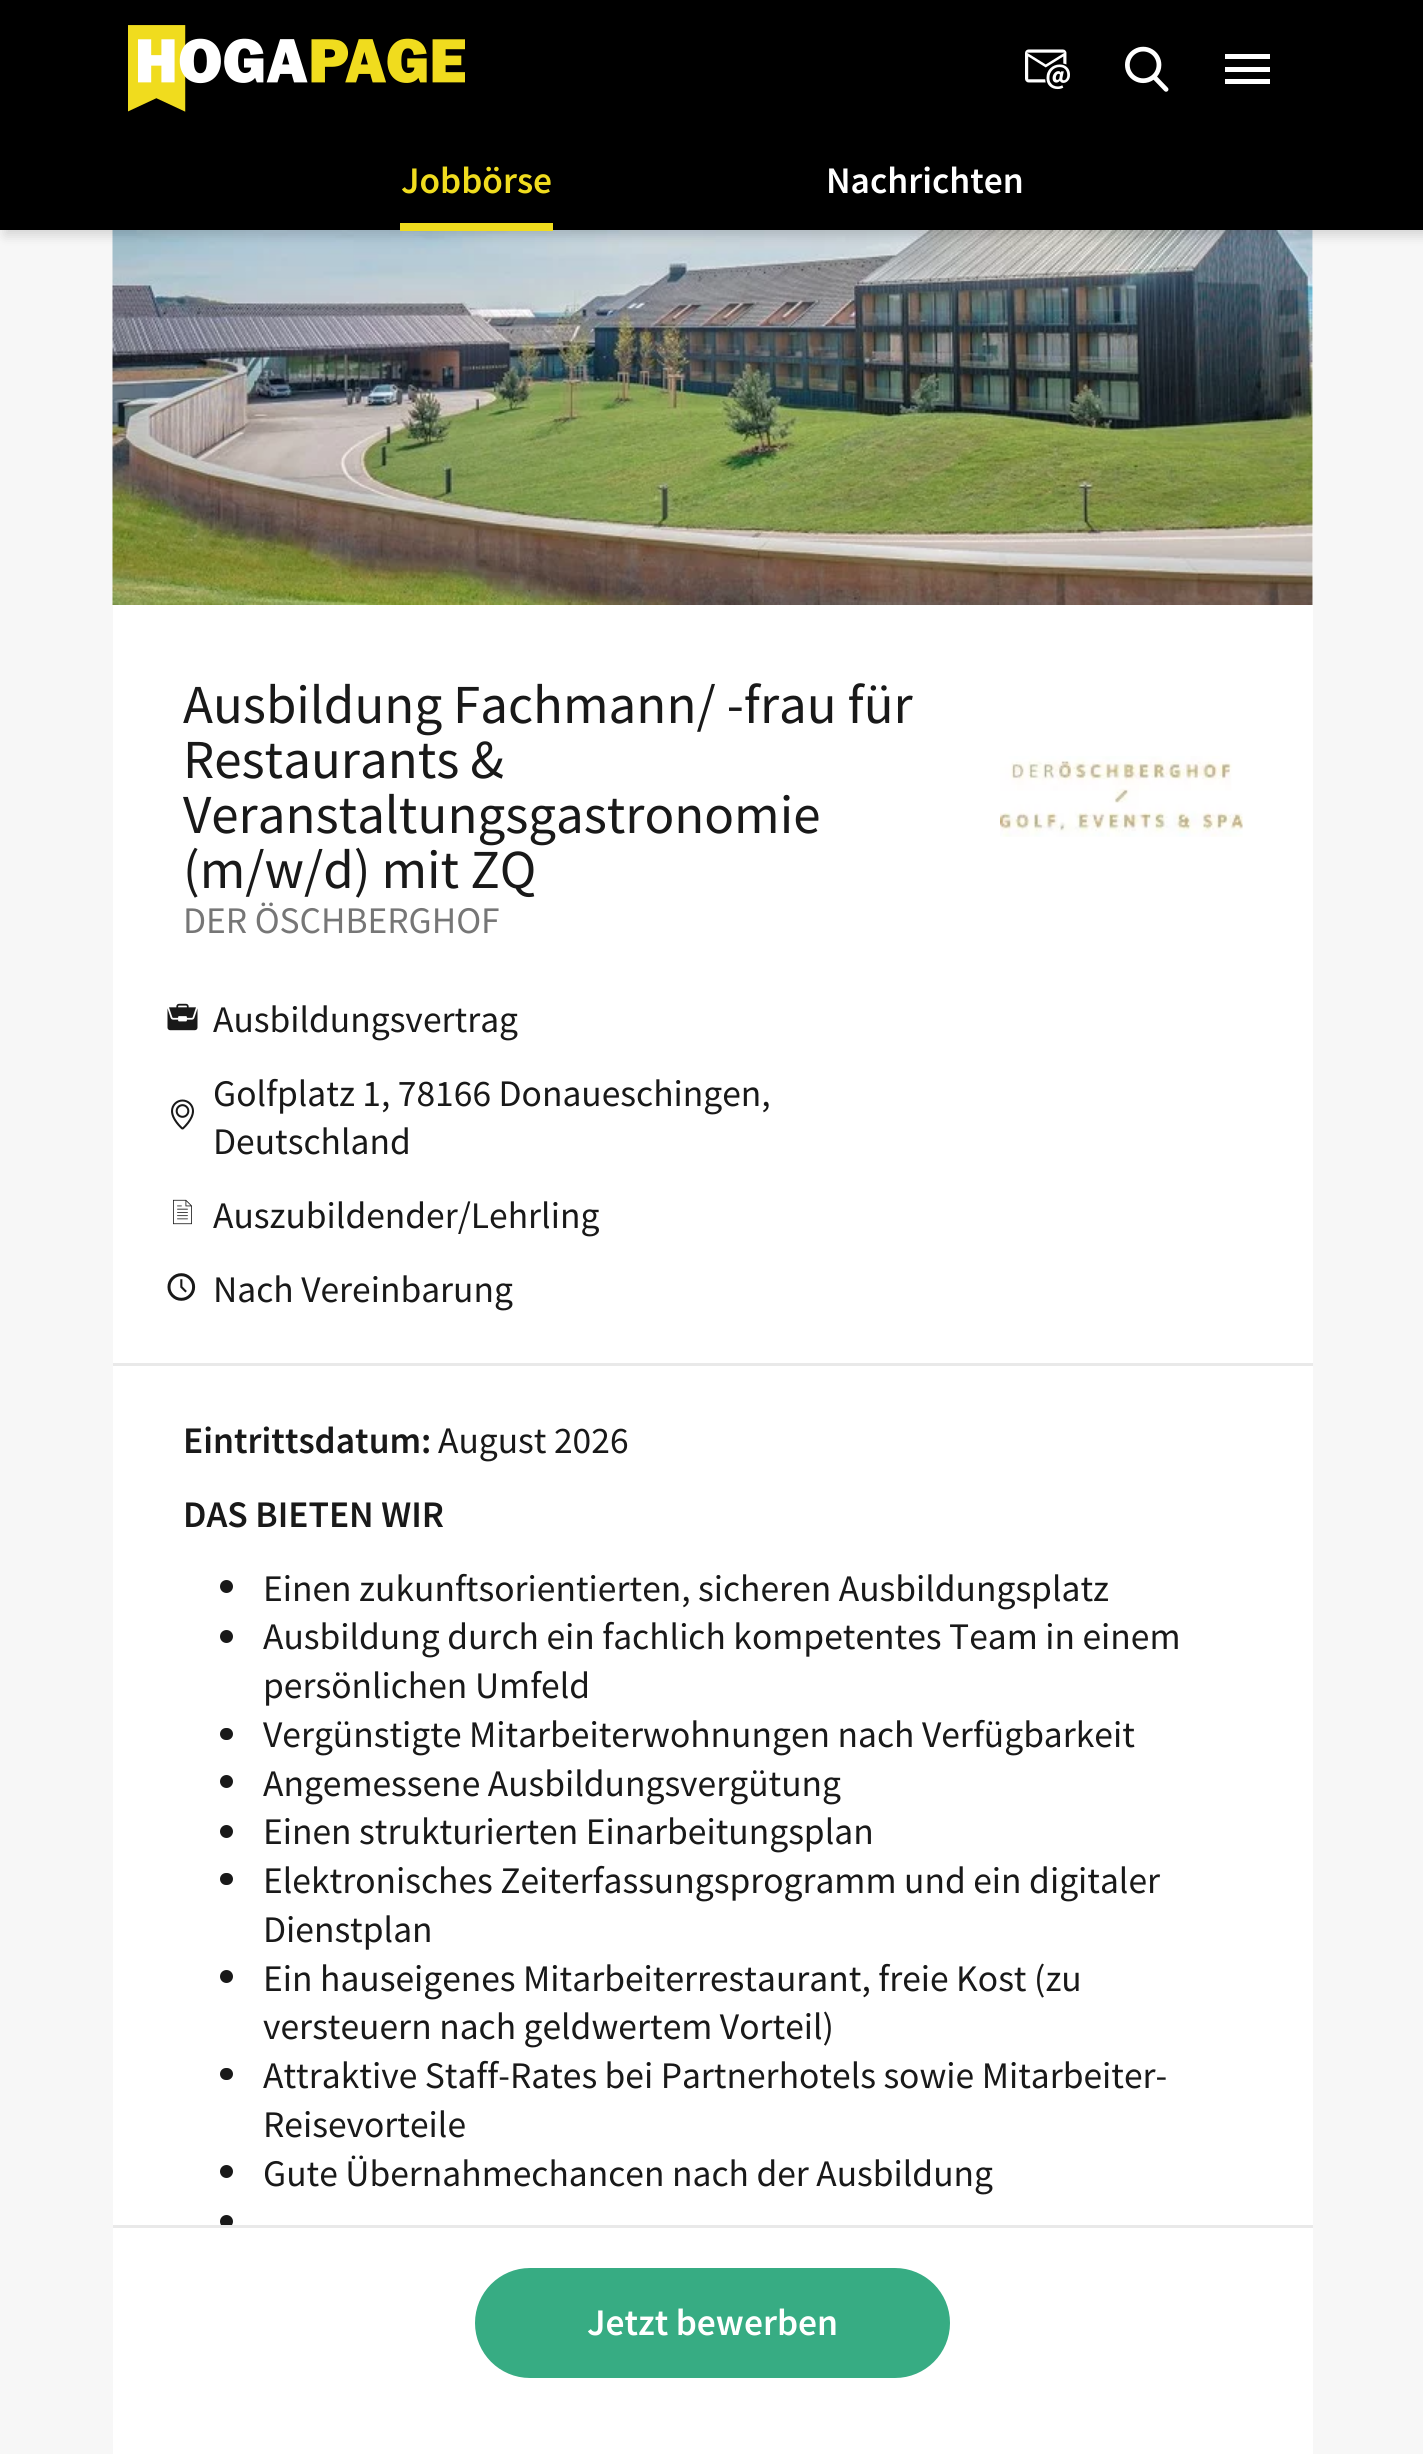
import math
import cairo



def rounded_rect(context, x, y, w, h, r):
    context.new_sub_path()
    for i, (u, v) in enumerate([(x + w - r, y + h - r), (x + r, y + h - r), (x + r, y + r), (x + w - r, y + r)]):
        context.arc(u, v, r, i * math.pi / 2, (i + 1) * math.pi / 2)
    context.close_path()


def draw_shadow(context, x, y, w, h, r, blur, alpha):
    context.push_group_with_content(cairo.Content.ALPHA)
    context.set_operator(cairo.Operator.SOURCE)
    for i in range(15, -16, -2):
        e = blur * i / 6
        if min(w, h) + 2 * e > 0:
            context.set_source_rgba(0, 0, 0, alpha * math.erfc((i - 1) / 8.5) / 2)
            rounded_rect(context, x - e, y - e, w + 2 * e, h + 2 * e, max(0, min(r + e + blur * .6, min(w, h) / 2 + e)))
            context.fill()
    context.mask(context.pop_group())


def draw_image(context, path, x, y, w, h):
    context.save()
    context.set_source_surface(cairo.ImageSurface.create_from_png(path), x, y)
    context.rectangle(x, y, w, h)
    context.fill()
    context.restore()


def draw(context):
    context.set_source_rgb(247 / 255, 247 / 255, 247 / 255)
    context.paint()
    context.set_source_rgb(1, 1, 1)
    context.rectangle(113, 230, 1200, 1995)
    context.fill()
    draw_image(context, "images/4.png", 112, 230, 1201, 375)
    context.set_source_rgb(0, 0, 0)
    draw_shadow(context, 5, 143, 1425, 92, 0, 6, 0.15)
    context.set_source_rgb(0, 0, 0)
    context.rectangle(0, 0, 1423, 230)
    context.fill()
    draw_image(context, "images/1.png", 128, 25, 337, 87)
    draw_image(context, "images/2.png", 1025, 49, 45, 41)
    draw_image(context, "images/3.png", 1125, 46, 44, 46)
    context.set_source_rgb(1, 1, 1)
    context.new_path()
    context.move_to(1225, 84)
    context.line_to(1225, 79)
    context.line_to(1270, 79)
    context.line_to(1270, 84)
    context.close_path()
    context.move_to(1225, 67)
    context.line_to(1270, 67)
    context.line_to(1270, 72)
    context.line_to(1225, 72)
    context.close_path()
    context.move_to(1225, 54)
    context.line_to(1270, 54)
    context.line_to(1270, 59)
    context.line_to(1225, 59)
    context.close_path()
    context.fill()
    context.set_source_rgb(240 / 255, 220 / 255, 30 / 255)
    context.rectangle(400, 223, 153, 8)
    context.fill()
    draw_image(context, "images/5.png", 167, 1003, 31, 28)
    draw_image(context, "images/6.png", 171, 1099, 23, 31)
    draw_image(context, "images/7.png", 173, 1199, 19, 26)
    draw_image(context, "images/8.png", 167, 1273, 29, 28)
    draw_image(context, "images/9.png", 1000, 756, 243, 81)
    context.set_source_rgb(233 / 255, 233 / 255, 233 / 255)
    context.rectangle(113, 1363, 1200, 3)
    context.fill()
    context.set_source_rgb(25 / 255, 25 / 255, 25 / 255)
    context.arc(226.5, 1586.5, 6.5, 0, 2 * math.pi)
    context.fill()
    context.arc(226.5, 1636.5, 6.5, 0, 2 * math.pi)
    context.fill()
    rounded_rect(context, 220, 1728, 13, 12, 6)
    context.fill()
    context.arc(226.5, 1781.5, 6.5, 0, 2 * math.pi)
    context.fill()
    context.arc(226.5, 1831.5, 6.5, 0, 2 * math.pi)
    context.fill()
    rounded_rect(context, 220, 1873, 13, 12, 6)
    context.fill()
    context.arc(226.5, 1976.5, 6.5, 0, 2 * math.pi)
    context.fill()
    rounded_rect(context, 220, 2068, 13, 12, 6)
    context.fill()
    context.arc(226.5, 2171.5, 6.5, 0, 2 * math.pi)
    context.fill()
    context.arc(226.5, 2221.5, 6.5, 0, 2 * math.pi)
    context.fill()
    context.set_source_rgb(1, 1, 1)
    context.rectangle(113, 2228, 1200, 226)
    context.fill()
    context.set_source_rgb(233 / 255, 233 / 255, 233 / 255)
    context.rectangle(113, 2225, 1200, 3)
    context.fill()
    context.set_source_rgb(55 / 255, 172 / 255, 131 / 255)
    rounded_rect(context, 476.5, 2269.5, 472, 107, 53.5)
    context.fill_preserve()
    context.set_line_width(3)
    context.stroke()
    context.select_font_face("Source Sans Pro SemiBold")
    context.set_font_size(37.5)
    context.set_source_rgb(240 / 255, 220 / 255, 30 / 255)
    context.move_to(401, 193)
    context.show_text("Jobbörse")
    context.set_source_rgb(1, 1, 1)
    context.move_to(826, 193)
    context.show_text("Nachrichten")
    context.select_font_face("Source Sans Pro")
    context.set_font_size(55)
    context.set_source_rgb(25 / 255, 25 / 255, 25 / 255)
    context.move_to(183, 723)
    context.show_text("Ausbildung Fachmann/ -frau für")
    context.move_to(183, 778)
    context.show_text("Restaurants &")
    context.move_to(183, 833)
    context.show_text("Veranstaltungsgastronomie")
    context.move_to(183, 888)
    context.show_text("(m/w/d) mit ZQ")
    context.set_font_size(37.5)
    context.set_source_rgb(118 / 255, 118 / 255, 118 / 255)
    context.move_to(183, 933)
    context.show_text("DER ÖSCHBERGHOF")
    context.set_source_rgb(25 / 255, 25 / 255, 25 / 255)
    context.move_to(213, 1032)
    context.show_text("Ausbildungsvertrag")
    context.move_to(213, 1106)
    context.show_text("Golfplatz 1, 78166 Donaueschingen,")
    context.move_to(213, 1154)
    context.show_text("Deutschland")
    context.move_to(213, 1228)
    context.show_text("Auszubildender/Lehrling")
    context.move_to(213, 1302)
    context.show_text("Nach Vereinbarung")
    context.select_font_face("Source Sans Pro SemiBold")
    context.move_to(183, 1453)
    context.show_text("Eintrittsdatum:")
    context.select_font_face("Source Sans Pro")
    context.move_to(438, 1453)
    context.show_text("August 2026")
    context.select_font_face("Source Sans Pro SemiBold")
    context.move_to(183, 1527)
    context.show_text("DAS BIETEN WIR")
    context.select_font_face("Source Sans Pro")
    context.move_to(263, 1601)
    context.show_text("Einen zukunftsorientierten, sicheren Ausbildungsplatz")
    context.move_to(263, 1649)
    context.show_text("Ausbildung durch ein fachlich kompetentes Team in einem")
    context.move_to(263, 1698)
    context.show_text("persönlichen Umfeld")
    context.move_to(263, 1747)
    context.show_text("Vergünstigte Mitarbeiterwohnungen nach Verfügbarkeit")
    context.move_to(263, 1796)
    context.show_text("Angemessene Ausbildungsvergütung")
    context.move_to(263, 1844)
    context.show_text("Einen strukturierten Einarbeitungsplan")
    context.move_to(263, 1893)
    context.show_text("Elektronisches Zeiterfassungsprogramm und ein digitaler")
    context.move_to(263, 1942)
    context.show_text("Dienstplan")
    context.move_to(263, 1991)
    context.show_text("Ein hauseigenes Mitarbeiterrestaurant, freie Kost (zu")
    context.move_to(263, 2039)
    context.show_text("versteuern nach geldwertem Vorteil)")
    context.move_to(263, 2088)
    context.show_text("Attraktive Staff-Rates bei Partnerhotels sowie Mitarbeiter-")
    context.move_to(263, 2137)
    context.show_text("Reisevorteile")
    context.move_to(263, 2186)
    context.show_text("Gute Übernahmechancen nach der Ausbildung")
    context.select_font_face("Source Sans Pro SemiBold")
    context.set_source_rgb(1, 1, 1)
    context.move_to(587, 2335)
    context.show_text("Jetzt bewerben")


surface = cairo.ImageSurface(cairo.Format.RGB24, 1423, 2454)
context = cairo.Context(surface)
options = cairo.FontOptions()
options.set_hint_metrics(cairo.HintMetrics.OFF)
options.set_hint_style(cairo.HintStyle.NONE)
context.set_font_options(options)
context.set_miter_limit(4)
draw(context)
surface.write_to_png("out.png")
